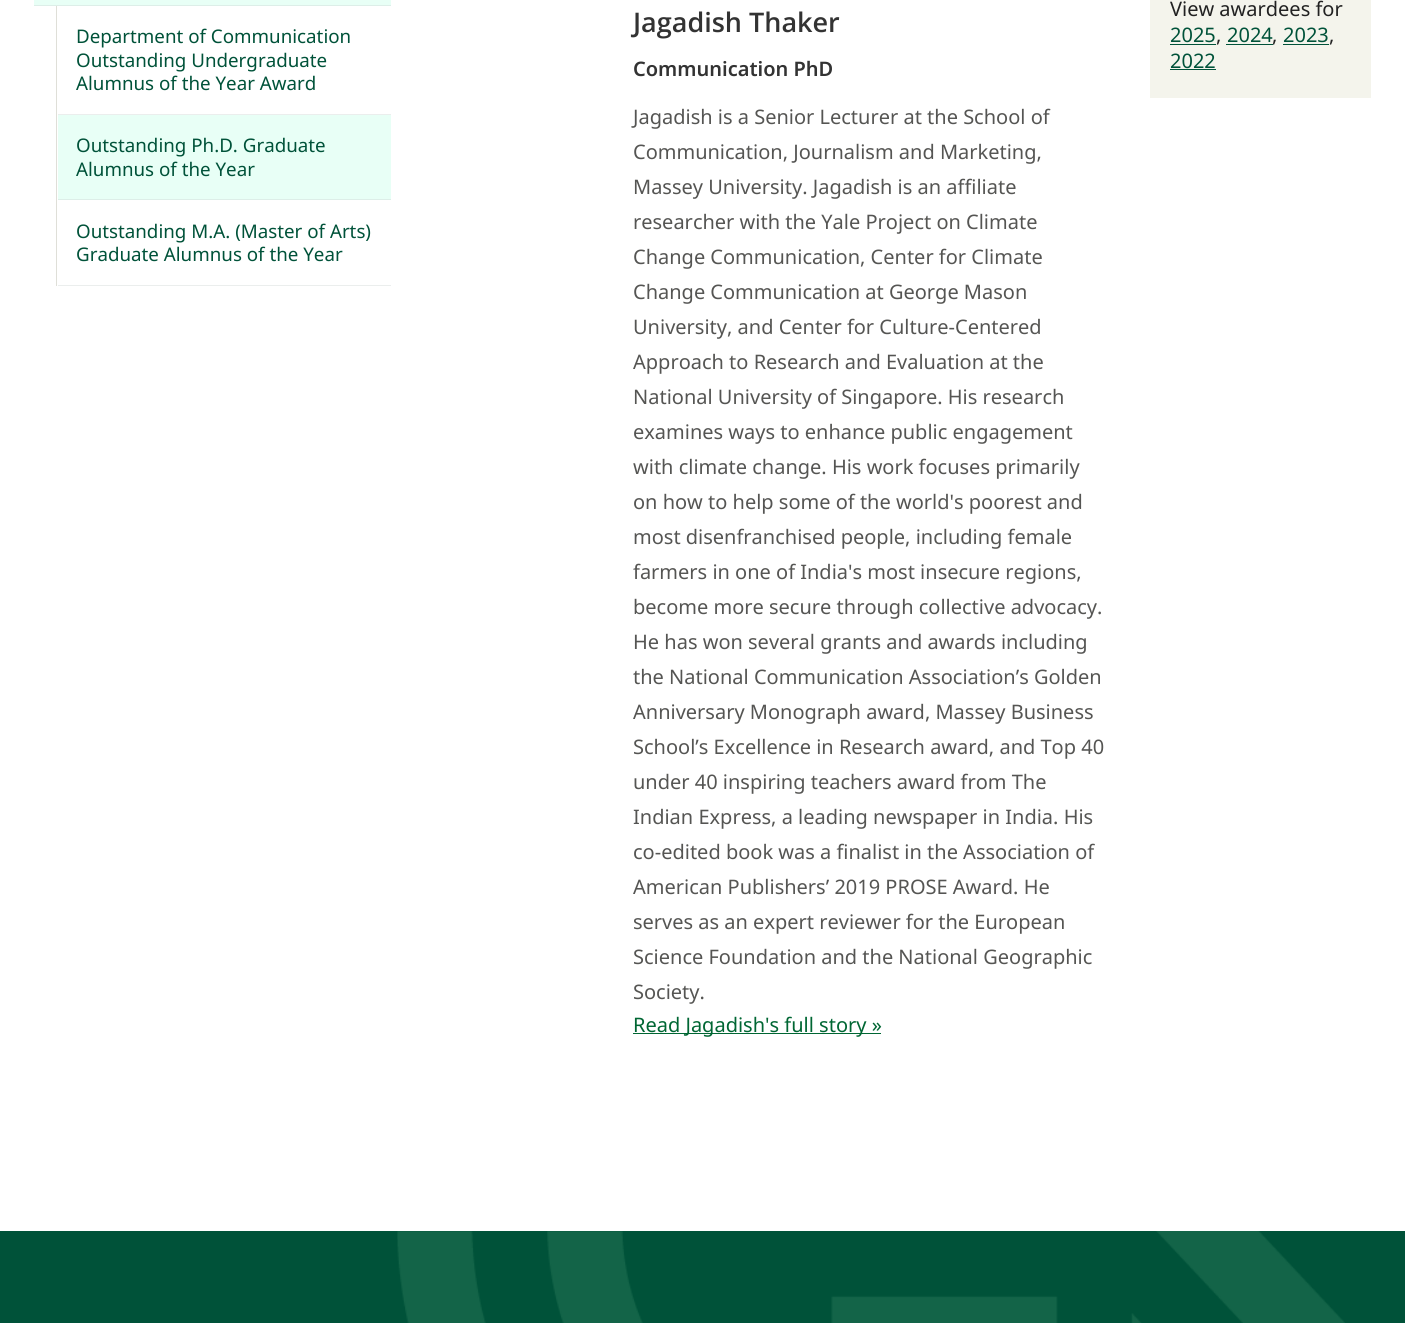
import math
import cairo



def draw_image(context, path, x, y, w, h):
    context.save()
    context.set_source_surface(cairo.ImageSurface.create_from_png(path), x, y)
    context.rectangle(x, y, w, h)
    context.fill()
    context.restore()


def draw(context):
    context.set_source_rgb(1, 1, 1)
    context.paint()
    context.set_source_rgb(232 / 255, 1, 246 / 255)
    context.rectangle(34, 0, 357, 5)
    context.fill()
    context.set_source_rgb(221 / 255, 238 / 255, 232 / 255)
    context.rectangle(34, 5, 357, 1)
    context.fill()
    context.set_source_rgb(223 / 255, 223 / 255, 216 / 255)
    context.rectangle(56, 6, 1, 280)
    context.fill()
    context.set_source_rgb(235 / 255, 238 / 255, 237 / 255)
    context.rectangle(58, 114, 333, 1)
    context.fill()
    context.set_source_rgb(232 / 255, 1, 246 / 255)
    context.rectangle(58, 115, 333, 84)
    context.fill()
    context.set_source_rgb(221 / 255, 238 / 255, 232 / 255)
    context.rectangle(58, 199, 333, 1)
    context.fill()
    context.set_source_rgb(235 / 255, 238 / 255, 237 / 255)
    context.rectangle(58, 285, 333, 1)
    context.fill()
    context.set_source_rgb(0, 102 / 255, 51 / 255)
    context.rectangle(633, 1033, 248, 1)
    context.fill()
    context.set_source_rgb(244 / 255, 244 / 255, 236 / 255)
    context.rectangle(1150, 0, 221, 98)
    context.fill()
    context.set_source_rgb(0, 82 / 255, 57 / 255)
    context.rectangle(1170, 44, 46, 1)
    context.fill()
    context.rectangle(1226, 44, 47, 1)
    context.fill()
    context.rectangle(1283, 44, 46, 1)
    context.fill()
    context.rectangle(1170, 69, 46, 1)
    context.fill()
    context.rectangle(0, 1231, 1405, 92)
    context.fill()
    draw_image(context, "images/1.png", 397, 1231, 948, 92)
    context.select_font_face("Noto Sans")
    context.set_font_size(18.75)
    context.move_to(76, 43)
    context.show_text("Department of Communication")
    context.move_to(76, 67)
    context.show_text("Outstanding Undergraduate")
    context.move_to(76, 90)
    context.show_text("Alumnus of the Year Award")
    context.move_to(76, 152)
    context.show_text("Outstanding Ph.D. Graduate")
    context.move_to(76, 176)
    context.show_text("Alumnus of the Year")
    context.move_to(76, 238)
    context.show_text("Outstanding M.A. (Master of Arts)")
    context.move_to(76, 261)
    context.show_text("Graduate Alumnus of the Year")
    context.select_font_face("Open Sans SemiBold")
    context.set_font_size(27)
    context.set_source_rgb(51 / 255, 51 / 255, 51 / 255)
    context.move_to(633, 32)
    context.show_text("Jagadish Thaker")
    context.select_font_face("Noto Sans SemiBold")
    context.set_font_size(20)
    context.move_to(633, 76)
    context.show_text("Communication PhD")
    context.select_font_face("Noto Sans")
    context.set_source_rgb(85 / 255, 85 / 255, 83 / 255)
    context.move_to(633, 124)
    context.show_text("Jagadish is a Senior Lecturer at the School of")
    context.move_to(633, 159)
    context.show_text("Communication, Journalism and Marketing,")
    context.move_to(633, 194)
    context.show_text("Massey University. Jagadish is an affiliate")
    context.move_to(633, 229)
    context.show_text("researcher with the Yale Project on Climate")
    context.move_to(633, 264)
    context.show_text("Change Communication, Center for Climate")
    context.move_to(633, 299)
    context.show_text("Change Communication at George Mason")
    context.move_to(633, 334)
    context.show_text("University, and Center for Culture-Centered")
    context.move_to(633, 369)
    context.show_text("Approach to Research and Evaluation at the")
    context.move_to(633, 404)
    context.show_text("National University of Singapore. His research")
    context.move_to(633, 439)
    context.show_text("examines ways to enhance public engagement")
    context.move_to(633, 474)
    context.show_text("with climate change. His work focuses primarily")
    context.move_to(633, 509)
    context.show_text("on how to help some of the world's poorest and")
    context.move_to(633, 544)
    context.show_text("most disenfranchised people, including female")
    context.move_to(633, 579)
    context.show_text("farmers in one of India's most insecure regions,")
    context.move_to(633, 614)
    context.show_text("become more secure through collective advocacy.")
    context.move_to(633, 649)
    context.show_text("He has won several grants and awards including")
    context.move_to(633, 684)
    context.show_text("the National Communication Association’s Golden")
    context.move_to(633, 719)
    context.show_text("Anniversary Monograph award, Massey Business")
    context.move_to(633, 754)
    context.show_text("School’s Excellence in Research award, and Top 40")
    context.move_to(633, 789)
    context.show_text("under 40 inspiring teachers award from The")
    context.move_to(633, 824)
    context.show_text("Indian Express, a leading newspaper in India. His")
    context.move_to(633, 859)
    context.show_text("co-edited book was a finalist in the Association of")
    context.move_to(633, 894)
    context.show_text("American Publishers’ 2019 PROSE Award. He")
    context.move_to(633, 929)
    context.show_text("serves as an expert reviewer for the European")
    context.move_to(633, 964)
    context.show_text("Science Foundation and the National Geographic")
    context.move_to(633, 999)
    context.show_text("Society.")
    context.set_source_rgb(0, 102 / 255, 51 / 255)
    context.move_to(633, 1032)
    context.show_text("Read Jagadish's full story »")
    context.set_source_rgb(34 / 255, 34 / 255, 34 / 255)
    context.move_to(1170, 16)
    context.show_text("View awardees for")
    context.set_source_rgb(0, 82 / 255, 57 / 255)
    context.move_to(1170, 42)
    context.show_text("2025")
    context.set_source_rgb(34 / 255, 34 / 255, 34 / 255)
    context.move_to(1216, 42)
    context.show_text(",")
    context.set_source_rgb(0, 82 / 255, 57 / 255)
    context.move_to(1227, 42)
    context.show_text("2024")
    context.set_source_rgb(34 / 255, 34 / 255, 34 / 255)
    context.move_to(1272, 42)
    context.show_text(",")
    context.set_source_rgb(0, 82 / 255, 57 / 255)
    context.move_to(1283, 42)
    context.show_text("2023")
    context.set_source_rgb(34 / 255, 34 / 255, 34 / 255)
    context.move_to(1329, 42)
    context.show_text(",")
    context.set_source_rgb(0, 82 / 255, 57 / 255)
    context.move_to(1170, 68)
    context.show_text("2022")


surface = cairo.ImageSurface(cairo.Format.RGB24, 1405, 1323)
context = cairo.Context(surface)
options = cairo.FontOptions()
options.set_hint_metrics(cairo.HintMetrics.OFF)
options.set_hint_style(cairo.HintStyle.NONE)
context.set_font_options(options)
context.set_miter_limit(4)
draw(context)
surface.write_to_png("out.png")
